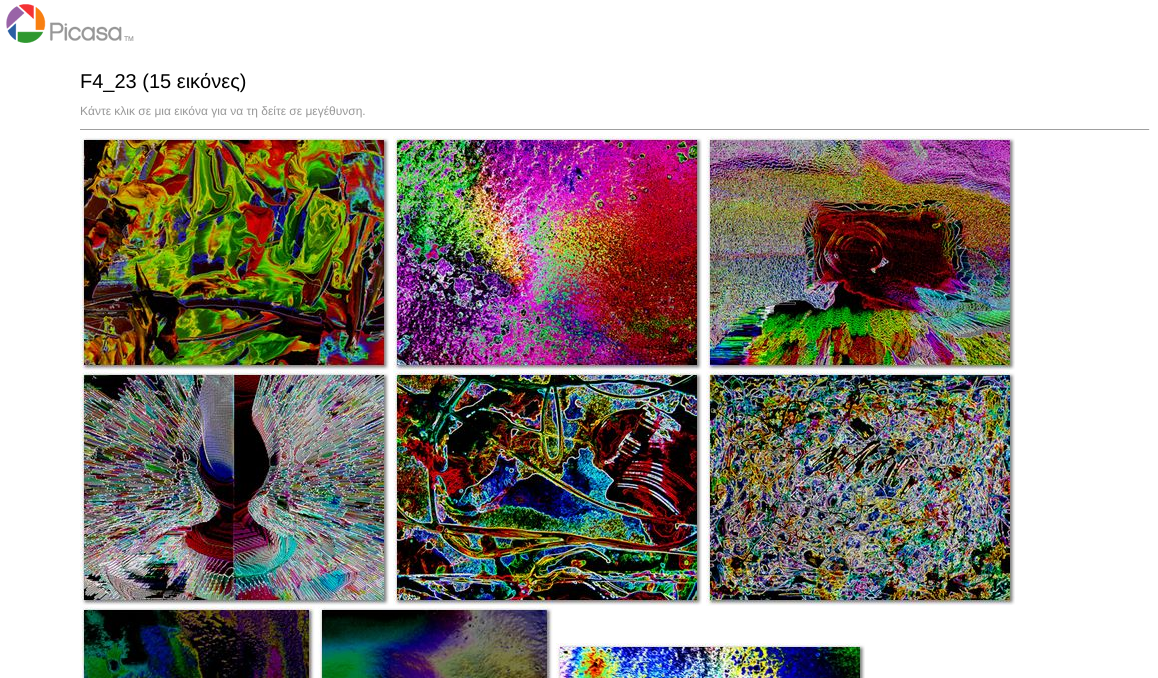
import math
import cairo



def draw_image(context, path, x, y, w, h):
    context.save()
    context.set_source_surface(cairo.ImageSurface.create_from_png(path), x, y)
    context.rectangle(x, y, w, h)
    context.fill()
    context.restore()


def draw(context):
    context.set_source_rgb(1, 1, 1)
    context.paint()
    draw_image(context, "images/1.png", 6, 4, 128, 39)
    context.set_source_rgb(159 / 255, 159 / 255, 159 / 255)
    context.rectangle(80, 129, 1070, 1)
    context.fill()
    context.set_source_rgb(238 / 255, 238 / 255, 238 / 255)
    context.rectangle(1149, 129, 1, 1)
    context.fill()
    draw_image(context, "images/2.png", 80, 136, 309, 235)
    draw_image(context, "images/3.png", 393, 136, 309, 235)
    draw_image(context, "images/4.png", 706, 136, 309, 235)
    draw_image(context, "images/5.png", 80, 371, 309, 235)
    draw_image(context, "images/6.png", 393, 371, 309, 235)
    draw_image(context, "images/7.png", 706, 371, 309, 235)
    draw_image(context, "images/8.png", 80, 606, 235, 72)
    draw_image(context, "images/9.png", 318, 606, 235, 72)
    draw_image(context, "images/10.png", 556, 643, 309, 35)
    context.select_font_face("Liberation Sans")
    context.set_font_size(20)
    context.set_source_rgb(0, 0, 0)
    context.move_to(80, 88)
    context.show_text("F4_23 (15 εικόνες)")
    context.set_font_size(12)
    context.set_source_rgb(151 / 255, 151 / 255, 151 / 255)
    context.move_to(80, 115)
    context.show_text("Κάντε κλικ σε μια εικόνα για να τη δείτε σε μεγέθυνση.")


surface = cairo.ImageSurface(cairo.Format.RGB24, 1158, 678)
context = cairo.Context(surface)
options = cairo.FontOptions()
options.set_hint_metrics(cairo.HintMetrics.OFF)
options.set_hint_style(cairo.HintStyle.NONE)
context.set_font_options(options)
context.set_miter_limit(4)
draw(context)
surface.write_to_png("out.png")
